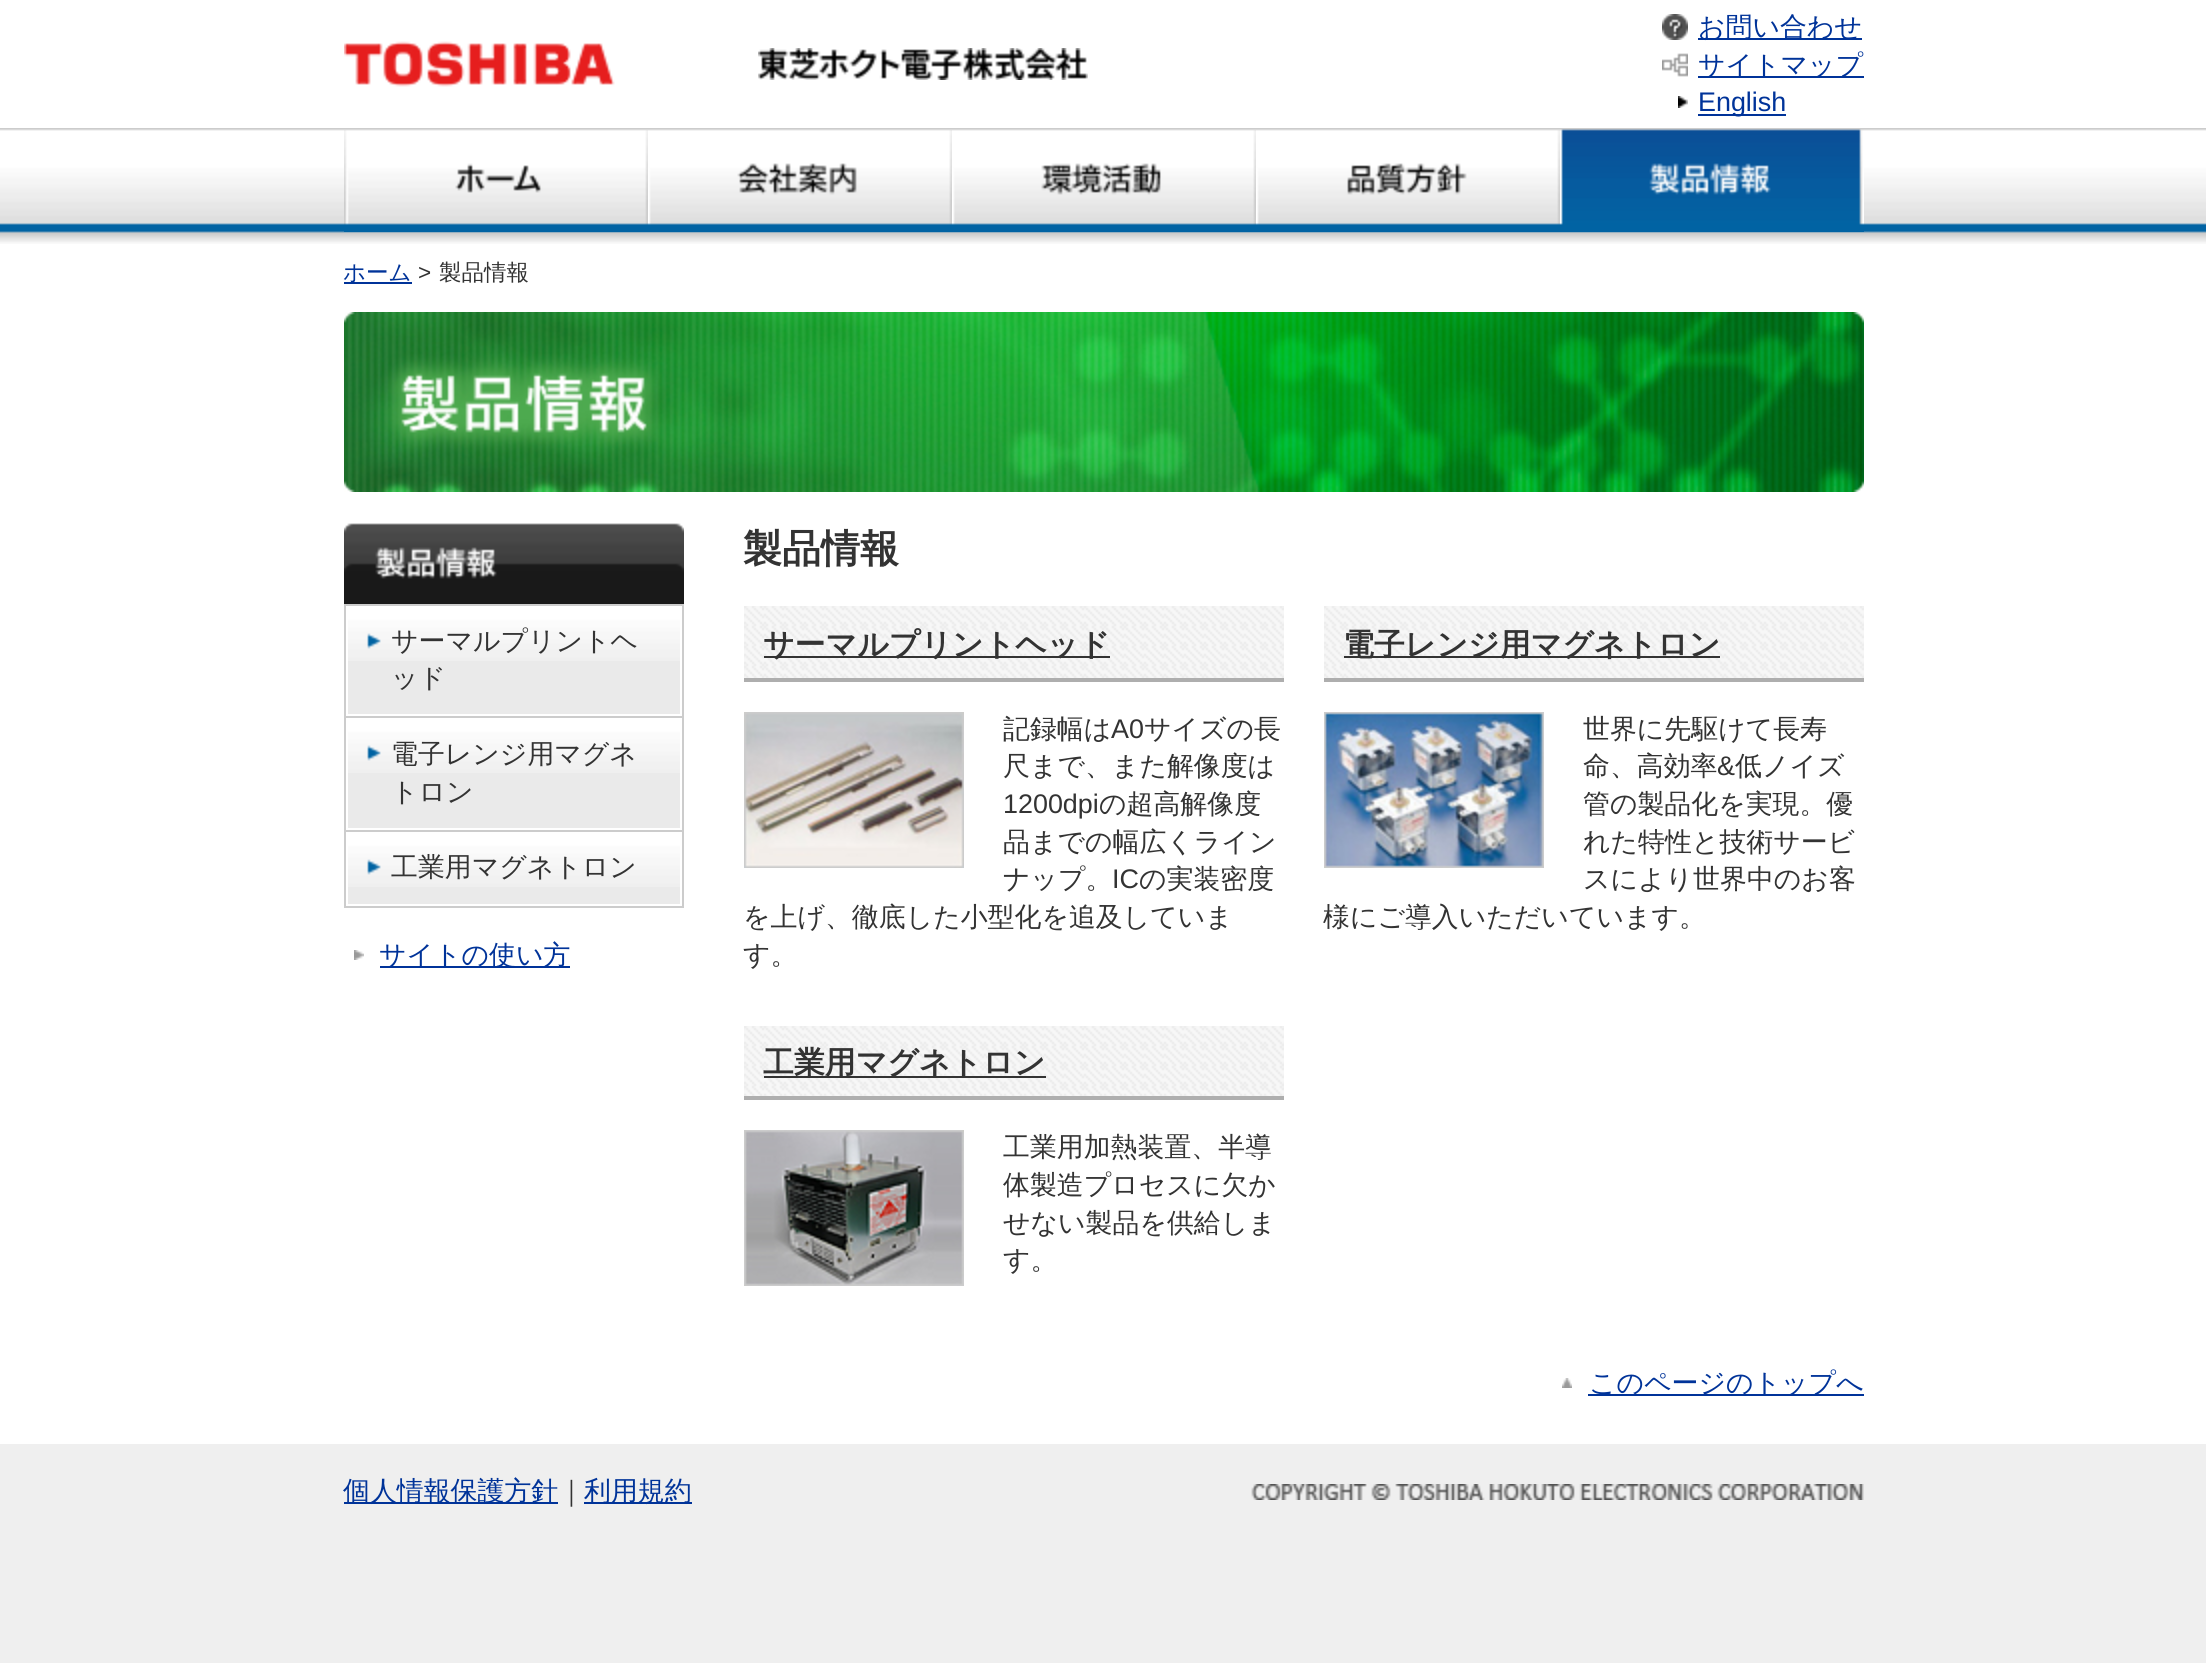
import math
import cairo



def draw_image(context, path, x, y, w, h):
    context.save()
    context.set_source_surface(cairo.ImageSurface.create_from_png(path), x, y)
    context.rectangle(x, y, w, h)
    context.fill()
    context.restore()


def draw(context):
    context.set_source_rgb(239 / 255, 239 / 255, 239 / 255)
    context.paint()
    context.set_source_rgb(1, 1, 1)
    context.rectangle(0, 0, 2206, 128)
    context.fill()
    draw_image(context, "images/1.png", 344, 41, 271, 46)
    draw_image(context, "images/2.png", 758, 48, 330, 32)
    draw_image(context, "images/3.png", 1662, 14, 26, 26)
    context.set_source_rgb(0, 51 / 255, 153 / 255)
    context.rectangle(1698, 38, 164, 2)
    context.fill()
    draw_image(context, "images/4.png", 1662, 53, 26, 24)
    context.rectangle(1698, 76, 166, 2)
    context.fill()
    draw_image(context, "images/5.png", 1678, 96, 10, 12)
    context.rectangle(1698, 114, 88, 2)
    context.fill()
    draw_image(context, "images/6.png", 0, 128, 2206, 116)
    draw_image(context, "images/7.png", 344, 130, 304, 102)
    draw_image(context, "images/8.png", 648, 130, 304, 102)
    draw_image(context, "images/9.png", 952, 130, 304, 102)
    draw_image(context, "images/10.png", 1256, 130, 304, 102)
    draw_image(context, "images/11.png", 1560, 129, 304, 103)
    context.set_source_rgb(1, 1, 1)
    context.rectangle(0, 244, 2206, 1200)
    context.fill()
    context.set_source_rgb(0, 51 / 255, 153 / 255)
    context.rectangle(344, 282, 68, 2)
    context.fill()
    draw_image(context, "images/12.png", 344, 312, 1520, 180)
    context.set_source_rgb(204 / 255, 204 / 255, 204 / 255)
    context.rectangle(344, 906, 340, 2)
    context.fill()
    draw_image(context, "images/13.png", 344, 523, 340, 81)
    context.rectangle(344, 604, 340, 2)
    context.fill()
    context.rectangle(682, 604, 2, 112)
    context.fill()
    context.rectangle(344, 604, 2, 112)
    context.fill()
    context.set_source_rgb(234 / 255, 234 / 255, 234 / 255)
    context.rectangle(348, 661, 332, 53)
    context.fill()
    draw_image(context, "images/14.png", 348, 606, 332, 55)
    context.set_source_rgb(204 / 255, 204 / 255, 204 / 255)
    context.rectangle(344, 716, 340, 2)
    context.fill()
    context.rectangle(682, 716, 2, 114)
    context.fill()
    context.rectangle(344, 716, 2, 114)
    context.fill()
    context.set_source_rgb(234 / 255, 234 / 255, 234 / 255)
    context.rectangle(348, 773, 332, 55)
    context.fill()
    draw_image(context, "images/14.png", 348, 718, 332, 55)
    context.set_source_rgb(204 / 255, 204 / 255, 204 / 255)
    context.rectangle(344, 830, 340, 2)
    context.fill()
    context.rectangle(682, 830, 2, 76)
    context.fill()
    context.rectangle(344, 830, 2, 76)
    context.fill()
    context.set_source_rgb(234 / 255, 234 / 255, 234 / 255)
    context.rectangle(348, 887, 332, 17)
    context.fill()
    draw_image(context, "images/14.png", 348, 832, 332, 55)
    draw_image(context, "images/15.png", 354, 950, 10, 10)
    context.set_source_rgb(0, 51 / 255, 153 / 255)
    context.rectangle(380, 966, 190, 2)
    context.fill()
    context.set_source_rgb(247 / 255, 247 / 255, 247 / 255)
    context.rectangle(744, 606, 540, 72)
    context.fill()
    draw_image(context, "images/16.png", 744, 606, 540, 72)
    context.set_source_rgb(174 / 255, 174 / 255, 174 / 255)
    context.rectangle(744, 678, 540, 4)
    context.fill()
    context.set_source_rgb(51 / 255, 51 / 255, 51 / 255)
    context.rectangle(764, 656, 346, 2)
    context.fill()
    draw_image(context, "images/17.png", 744, 712, 220, 156)
    context.set_source_rgb(247 / 255, 247 / 255, 247 / 255)
    context.rectangle(1324, 606, 540, 72)
    context.fill()
    draw_image(context, "images/18.png", 1324, 606, 540, 72)
    context.set_source_rgb(174 / 255, 174 / 255, 174 / 255)
    context.rectangle(1324, 678, 540, 4)
    context.fill()
    context.set_source_rgb(51 / 255, 51 / 255, 51 / 255)
    context.rectangle(1344, 656, 376, 2)
    context.fill()
    draw_image(context, "images/19.png", 1324, 712, 220, 156)
    context.set_source_rgb(247 / 255, 247 / 255, 247 / 255)
    context.rectangle(744, 1026, 540, 70)
    context.fill()
    draw_image(context, "images/20.png", 744, 1026, 540, 70)
    context.set_source_rgb(174 / 255, 174 / 255, 174 / 255)
    context.rectangle(744, 1096, 540, 4)
    context.fill()
    context.set_source_rgb(51 / 255, 51 / 255, 51 / 255)
    context.rectangle(764, 1076, 282, 2)
    context.fill()
    draw_image(context, "images/21.png", 744, 1130, 220, 156)
    draw_image(context, "images/22.png", 1562, 1378, 10, 10)
    context.set_source_rgb(0, 51 / 255, 153 / 255)
    context.rectangle(1588, 1394, 276, 2)
    context.fill()
    context.rectangle(344, 1502, 214, 2)
    context.fill()
    context.rectangle(584, 1502, 108, 2)
    context.fill()
    draw_image(context, "images/23.png", 1251, 1484, 613, 16)
    context.select_font_face("WenQuanYi Zen Hei Medium")
    context.set_font_size(26.9)
    context.move_to(1698, 36)
    context.show_text("お問い合わせ")
    context.move_to(1698, 74)
    context.show_text("サイトマップ")
    context.select_font_face("Liberation Sans")
    context.move_to(1698, 111)
    context.show_text("English")
    context.select_font_face("WenQuanYi Zen Hei Medium")
    context.set_font_size(22.5)
    context.move_to(343, 280)
    context.show_text("ホーム")
    context.select_font_face("Liberation Sans")
    context.set_source_rgb(51 / 255, 51 / 255, 51 / 255)
    context.move_to(418, 280)
    context.show_text(">")
    context.select_font_face("WenQuanYi Zen Hei Medium")
    context.move_to(439, 280)
    context.show_text("製品情報")
    context.set_font_size(26.9)
    context.move_to(391, 650)
    context.show_text("サーマルプリントヘ")
    context.move_to(391, 687)
    context.show_text("ッド")
    context.move_to(391, 763)
    context.show_text("電子レンジ用マグネ")
    context.move_to(391, 801)
    context.show_text("トロン")
    context.move_to(391, 876)
    context.show_text("工業用マグネトロン")
    context.set_source_rgb(0, 51 / 255, 153 / 255)
    context.move_to(379, 964)
    context.show_text("サイトの使い方")
    context.select_font_face("WenQuanYi Zen Hei", cairo.FontSlant.NORMAL, cairo.FontWeight.BOLD)
    context.set_font_size(39)
    context.set_source_rgb(51 / 255, 51 / 255, 51 / 255)
    context.move_to(743, 562)
    context.show_text("製品情報")
    context.set_font_size(30.9)
    context.move_to(763, 655)
    context.show_text("サーマルプリントヘッド")
    context.select_font_face("WenQuanYi Zen Hei Medium")
    context.set_font_size(26.9)
    context.move_to(1003, 738)
    context.show_text("記録幅は")
    context.select_font_face("Liberation Sans")
    context.move_to(1111, 738)
    context.show_text("A0")
    context.select_font_face("WenQuanYi Zen Hei Medium")
    context.move_to(1144, 738)
    context.show_text("サイズの長")
    context.move_to(1003, 775)
    context.show_text("尺まで、また解像度は")
    context.select_font_face("Liberation Sans")
    context.move_to(1003, 813)
    context.show_text("1200dpi")
    context.select_font_face("WenQuanYi Zen Hei Medium")
    context.move_to(1099, 813)
    context.show_text("の超高解像度")
    context.move_to(1003, 851)
    context.show_text("品までの幅広くライン")
    context.move_to(1003, 888)
    context.show_text("ナップ。")
    context.select_font_face("Liberation Sans")
    context.move_to(1112, 888)
    context.show_text("IC")
    context.select_font_face("WenQuanYi Zen Hei Medium")
    context.move_to(1139, 888)
    context.show_text("の実装密度")
    context.move_to(743, 926)
    context.show_text("を上げ、徹底した小型化を追及していま")
    context.move_to(743, 964)
    context.show_text("す。")
    context.select_font_face("WenQuanYi Zen Hei", cairo.FontSlant.NORMAL, cairo.FontWeight.BOLD)
    context.set_font_size(30.9)
    context.move_to(1343, 655)
    context.show_text("電子レンジ用マグネトロン")
    context.select_font_face("WenQuanYi Zen Hei Medium")
    context.set_font_size(26.9)
    context.move_to(1583, 738)
    context.show_text("世界に先駆けて長寿")
    context.move_to(1583, 775)
    context.show_text("命、高効率")
    context.select_font_face("Liberation Sans")
    context.move_to(1717, 775)
    context.show_text("&")
    context.select_font_face("WenQuanYi Zen Hei Medium")
    context.move_to(1735, 775)
    context.show_text("低ノイズ")
    context.move_to(1583, 813)
    context.show_text("管の製品化を実現。優")
    context.move_to(1583, 851)
    context.show_text("れた特性と技術サービ")
    context.move_to(1583, 888)
    context.show_text("スにより世界中のお客")
    context.move_to(1323, 926)
    context.show_text("様にご導入いただいています。")
    context.select_font_face("WenQuanYi Zen Hei", cairo.FontSlant.NORMAL, cairo.FontWeight.BOLD)
    context.set_font_size(30.9)
    context.move_to(763, 1073)
    context.show_text("工業用マグネトロン")
    context.select_font_face("WenQuanYi Zen Hei Medium")
    context.set_font_size(26.9)
    context.move_to(1003, 1156)
    context.show_text("工業用加熱装置、半導")
    context.move_to(1003, 1194)
    context.show_text("体製造プロセスに欠か")
    context.move_to(1003, 1232)
    context.show_text("せない製品を供給しま")
    context.move_to(1003, 1269)
    context.show_text("す。")
    context.set_source_rgb(0, 51 / 255, 153 / 255)
    context.move_to(1589, 1392)
    context.show_text("このページのトップへ")
    context.move_to(343, 1500)
    context.show_text("個人情報保護方針")
    context.set_source_rgb(51 / 255, 51 / 255, 51 / 255)
    context.move_to(558, 1500)
    context.show_text("｜")
    context.set_source_rgb(0, 51 / 255, 153 / 255)
    context.move_to(584, 1500)
    context.show_text("利用規約")


surface = cairo.ImageSurface(cairo.Format.RGB24, 2206, 1663)
context = cairo.Context(surface)
options = cairo.FontOptions()
options.set_hint_metrics(cairo.HintMetrics.OFF)
options.set_hint_style(cairo.HintStyle.NONE)
context.set_font_options(options)
context.set_miter_limit(4)
draw(context)
surface.write_to_png("out.png")
